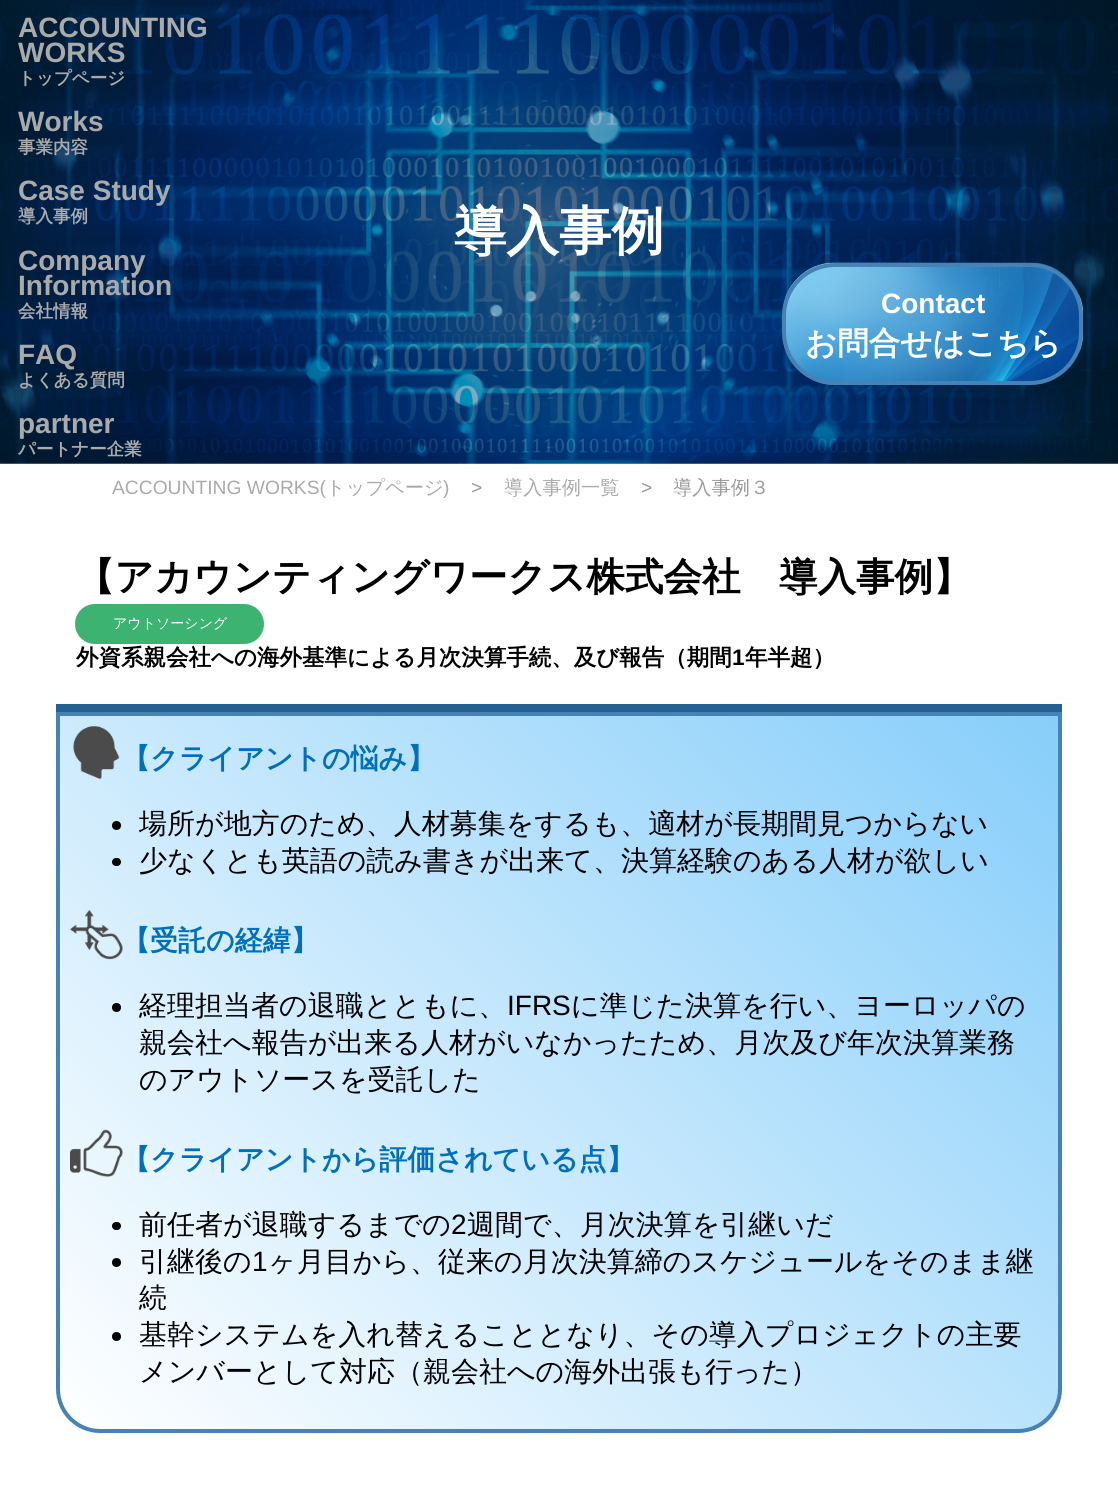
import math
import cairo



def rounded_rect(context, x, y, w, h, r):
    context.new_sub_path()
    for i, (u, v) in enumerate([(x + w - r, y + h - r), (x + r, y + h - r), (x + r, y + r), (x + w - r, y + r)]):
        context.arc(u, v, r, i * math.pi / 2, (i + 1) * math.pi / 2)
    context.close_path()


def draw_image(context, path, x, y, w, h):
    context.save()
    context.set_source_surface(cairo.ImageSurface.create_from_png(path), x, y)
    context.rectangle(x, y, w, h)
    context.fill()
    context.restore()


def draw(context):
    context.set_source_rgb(1, 1, 1)
    context.paint()
    draw_image(context, "images/1.png", 0, 0, 1118, 464)
    draw_image(context, "images/2.png", 782, 262, 302, 123)
    rounded_rect(context, 784, 265, 297, 118, 51)
    context.set_source_rgb(70 / 255, 130 / 255, 180 / 255)
    context.set_line_width(4)
    context.stroke()
    context.set_source_rgb(60 / 255, 179 / 255, 113 / 255)
    rounded_rect(context, 76, 605, 187, 38, 19)
    context.fill_preserve()
    context.set_line_width(2)
    context.stroke()
    context.set_source_rgb(36 / 255, 96 / 255, 146 / 255)
    context.rectangle(56, 704, 1006, 8)
    context.fill()
    context.save()
    context.new_path()
    context.move_to(56, 712)
    context.line_to(1062, 712)
    context.line_to(1062, 1389)
    context.curve_to(1062, 1413.5, 1042.5, 1433, 1018, 1433)
    context.line_to(100, 1433)
    context.curve_to(75.5, 1433, 56, 1413.5, 56, 1389)
    context.close_path()
    context.clip()
    gradient = cairo.LinearGradient(131, 1501, 987, 644)
    gradient.add_color_stop_rgba(0, 1, 1, 1, 1)
    gradient.add_color_stop_rgba(1, 135 / 255, 206 / 255, 250 / 255, 1)
    context.set_source(gradient)
    context.rectangle(60, 716, 999, 714)
    context.fill()
    context.restore()
    context.new_path()
    context.move_to(58, 714)
    context.line_to(1060, 714)
    context.line_to(1060, 1389)
    context.curve_to(1060, 1412, 1041, 1431, 1018, 1431)
    context.line_to(100, 1431)
    context.curve_to(77, 1431, 58, 1412, 58, 1389)
    context.close_path()
    context.set_source_rgb(70 / 255, 130 / 255, 180 / 255)
    context.set_line_width(4)
    context.stroke()
    draw_image(context, "images/3.png", 73, 726, 47, 53)
    context.set_source_rgb(0, 0, 0)
    context.arc(116.5, 825.5, 4.5, 0, 2 * math.pi)
    context.fill()
    rounded_rect(context, 112, 858, 9, 8, 4)
    context.fill()
    draw_image(context, "images/4.png", 70, 910, 53, 50)
    context.arc(116.5, 1007.5, 4.5, 0, 2 * math.pi)
    context.fill()
    draw_image(context, "images/5.png", 70, 1129, 53, 48)
    rounded_rect(context, 112, 1222, 9, 8, 4)
    context.fill()
    context.arc(116.5, 1262.5, 4.5, 0, 2 * math.pi)
    context.fill()
    context.arc(116.5, 1336.5, 4.5, 0, 2 * math.pi)
    context.fill()
    context.select_font_face("Liberation Sans", cairo.FontSlant.NORMAL, cairo.FontWeight.BOLD)
    context.set_font_size(28)
    context.set_source_rgb(170 / 255, 170 / 255, 170 / 255)
    context.move_to(18, 37)
    context.show_text("ACCOUNTING")
    context.move_to(18, 62)
    context.show_text("WORKS")
    context.select_font_face("WenQuanYi Zen Hei", cairo.FontSlant.NORMAL, cairo.FontWeight.BOLD)
    context.set_font_size(17.5)
    context.move_to(18, 84)
    context.show_text("トップページ")
    context.select_font_face("Liberation Sans", cairo.FontSlant.NORMAL, cairo.FontWeight.BOLD)
    context.set_font_size(28)
    context.move_to(18, 131)
    context.show_text("Works")
    context.select_font_face("WenQuanYi Zen Hei", cairo.FontSlant.NORMAL, cairo.FontWeight.BOLD)
    context.set_font_size(17.5)
    context.move_to(18, 153)
    context.show_text("事業内容")
    context.select_font_face("Liberation Sans", cairo.FontSlant.NORMAL, cairo.FontWeight.BOLD)
    context.set_font_size(28)
    context.move_to(18, 200)
    context.show_text("Case Study")
    context.select_font_face("WenQuanYi Zen Hei", cairo.FontSlant.NORMAL, cairo.FontWeight.BOLD)
    context.set_font_size(17.5)
    context.move_to(18, 222)
    context.show_text("導入事例")
    context.select_font_face("Liberation Sans", cairo.FontSlant.NORMAL, cairo.FontWeight.BOLD)
    context.set_font_size(28)
    context.move_to(18, 270)
    context.show_text("Company")
    context.move_to(18, 295)
    context.show_text("Information")
    context.select_font_face("WenQuanYi Zen Hei", cairo.FontSlant.NORMAL, cairo.FontWeight.BOLD)
    context.set_font_size(17.5)
    context.move_to(18, 317)
    context.show_text("会社情報")
    context.select_font_face("Liberation Sans", cairo.FontSlant.NORMAL, cairo.FontWeight.BOLD)
    context.set_font_size(28)
    context.move_to(18, 364)
    context.show_text("FAQ")
    context.select_font_face("WenQuanYi Zen Hei", cairo.FontSlant.NORMAL, cairo.FontWeight.BOLD)
    context.set_font_size(17.5)
    context.move_to(18, 386)
    context.show_text("よくある質問")
    context.select_font_face("Liberation Sans", cairo.FontSlant.NORMAL, cairo.FontWeight.BOLD)
    context.set_font_size(28)
    context.move_to(18, 433)
    context.show_text("partner")
    context.select_font_face("WenQuanYi Zen Hei", cairo.FontSlant.NORMAL, cairo.FontWeight.BOLD)
    context.set_font_size(17.5)
    context.move_to(18, 455)
    context.show_text("パートナー企業")
    context.set_font_size(52.5)
    context.set_source_rgb(1, 1, 1)
    context.move_to(454, 249)
    context.show_text("導入事例")
    context.select_font_face("Liberation Sans", cairo.FontSlant.NORMAL, cairo.FontWeight.BOLD)
    context.set_font_size(28)
    context.move_to(881, 313)
    context.show_text("Contact")
    context.select_font_face("WenQuanYi Zen Hei", cairo.FontSlant.NORMAL, cairo.FontWeight.BOLD)
    context.set_font_size(31.5)
    context.move_to(805, 354)
    context.show_text("お問合せはこちら")
    context.select_font_face("Liberation Sans")
    context.set_font_size(19.25)
    context.set_source_rgb(170 / 255, 170 / 255, 170 / 255)
    context.move_to(112, 494)
    context.show_text("ACCOUNTING WORKS(")
    context.select_font_face("WenQuanYi Zen Hei Medium")
    context.move_to(326, 494)
    context.show_text("トップページ")
    context.select_font_face("Liberation Sans")
    context.move_to(443, 494)
    context.show_text(")")
    context.set_source_rgb(153 / 255, 153 / 255, 153 / 255)
    context.move_to(471, 494)
    context.show_text(">")
    context.select_font_face("WenQuanYi Zen Hei Medium")
    context.set_source_rgb(170 / 255, 170 / 255, 170 / 255)
    context.move_to(504, 494)
    context.show_text("導入事例一覧")
    context.select_font_face("Liberation Sans")
    context.set_source_rgb(153 / 255, 153 / 255, 153 / 255)
    context.move_to(641, 494)
    context.show_text(">")
    context.select_font_face("WenQuanYi Zen Hei Medium")
    context.move_to(673, 494)
    context.show_text("導入事例３")
    context.select_font_face("WenQuanYi Zen Hei", cairo.FontSlant.NORMAL, cairo.FontWeight.BOLD)
    context.set_font_size(38.5)
    context.set_source_rgb(0, 0, 0)
    context.move_to(76, 590)
    context.show_text("【アカウンティングワークス株式会社　導入事例】")
    context.select_font_face("WenQuanYi Zen Hei Medium")
    context.set_font_size(14)
    context.set_source_rgb(1, 1, 1)
    context.move_to(113, 628)
    context.show_text("アウトソーシング")
    context.select_font_face("WenQuanYi Zen Hei", cairo.FontSlant.NORMAL, cairo.FontWeight.BOLD)
    context.set_font_size(22.5)
    context.set_source_rgb(0, 0, 0)
    context.move_to(76, 665)
    context.show_text("外資系親会社への海外基準による月次決算手続、及び報告（期間")
    context.select_font_face("Liberation Sans", cairo.FontSlant.NORMAL, cairo.FontWeight.BOLD)
    context.move_to(732, 665)
    context.show_text("1")
    context.select_font_face("WenQuanYi Zen Hei", cairo.FontSlant.NORMAL, cairo.FontWeight.BOLD)
    context.move_to(745, 665)
    context.show_text("年半超）")
    context.set_font_size(28)
    context.set_source_rgb(0, 111 / 255, 188 / 255)
    context.move_to(122, 768)
    context.show_text("【クライアントの悩み】")
    context.select_font_face("WenQuanYi Zen Hei Medium")
    context.set_source_rgb(0, 0, 0)
    context.move_to(139, 833)
    context.show_text("場所が地方のため、人材募集をするも、適材が長期間見つからない")
    context.move_to(139, 870)
    context.show_text("少なくとも英語の読み書きが出来て、決算経験のある人材が欲しい")
    context.select_font_face("WenQuanYi Zen Hei", cairo.FontSlant.NORMAL, cairo.FontWeight.BOLD)
    context.set_source_rgb(0, 111 / 255, 188 / 255)
    context.move_to(122, 950)
    context.show_text("【受託の経緯】")
    context.select_font_face("WenQuanYi Zen Hei Medium")
    context.set_source_rgb(0, 0, 0)
    context.move_to(139, 1015)
    context.show_text("経理担当者の退職とともに、")
    context.select_font_face("Liberation Sans")
    context.move_to(507, 1015)
    context.show_text("IFRS")
    context.select_font_face("WenQuanYi Zen Hei Medium")
    context.move_to(571, 1015)
    context.show_text("に準じた決算を行い、ヨーロッパの")
    context.move_to(139, 1052)
    context.show_text("親会社へ報告が出来る人材がいなかったため、月次及び年次決算業務")
    context.move_to(139, 1089)
    context.show_text("のアウトソースを受託した")
    context.select_font_face("WenQuanYi Zen Hei", cairo.FontSlant.NORMAL, cairo.FontWeight.BOLD)
    context.set_source_rgb(0, 111 / 255, 188 / 255)
    context.move_to(122, 1169)
    context.show_text("【クライアントから評価されている点】")
    context.select_font_face("WenQuanYi Zen Hei Medium")
    context.set_source_rgb(0, 0, 0)
    context.move_to(139, 1234)
    context.show_text("前任者が退職するまでの")
    context.select_font_face("Liberation Sans")
    context.move_to(451, 1234)
    context.show_text("2")
    context.select_font_face("WenQuanYi Zen Hei Medium")
    context.move_to(467, 1234)
    context.show_text("週間で、月次決算を引継いだ")
    context.move_to(139, 1271)
    context.show_text("引継後の")
    context.select_font_face("Liberation Sans")
    context.move_to(252, 1271)
    context.show_text("1")
    context.select_font_face("WenQuanYi Zen Hei Medium")
    context.move_to(268, 1271)
    context.show_text("ヶ月目から、従来の月次決算締のスケジュールをそのまま継")
    context.move_to(139, 1307)
    context.show_text("続")
    context.move_to(139, 1344)
    context.show_text("基幹システムを入れ替えることとなり、その導入プロジェクトの主要")
    context.move_to(139, 1381)
    context.show_text("メンバーとして対応（親会社への海外出張も行った）")


surface = cairo.ImageSurface(cairo.Format.RGB24, 1118, 1508)
context = cairo.Context(surface)
options = cairo.FontOptions()
options.set_hint_metrics(cairo.HintMetrics.OFF)
options.set_hint_style(cairo.HintStyle.NONE)
context.set_font_options(options)
context.set_miter_limit(4)
draw(context)
surface.write_to_png("out.png")
